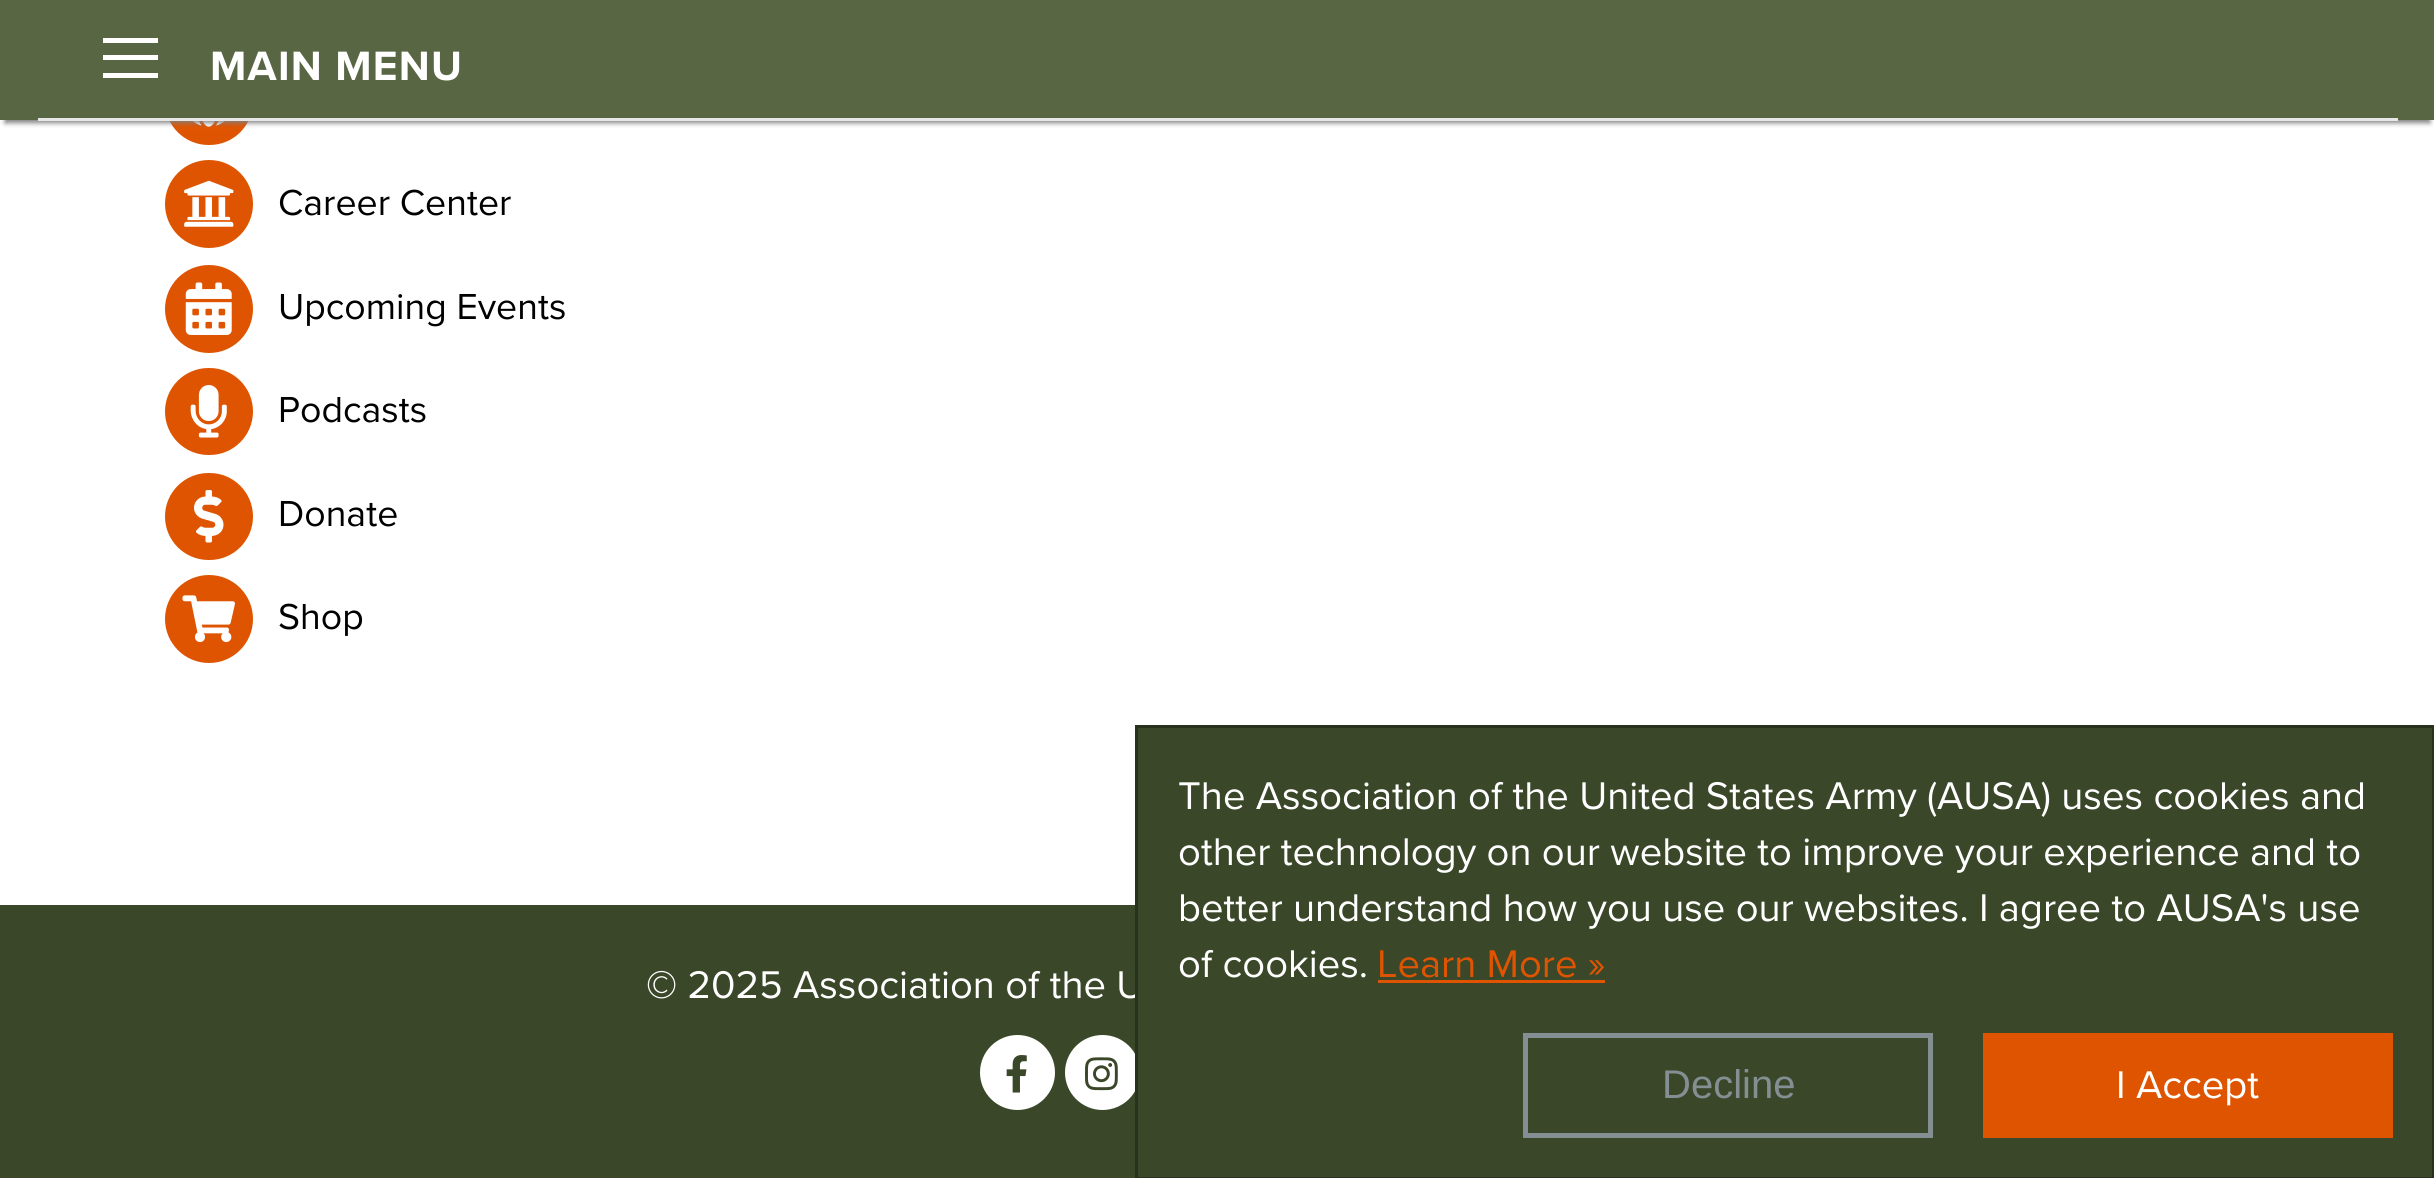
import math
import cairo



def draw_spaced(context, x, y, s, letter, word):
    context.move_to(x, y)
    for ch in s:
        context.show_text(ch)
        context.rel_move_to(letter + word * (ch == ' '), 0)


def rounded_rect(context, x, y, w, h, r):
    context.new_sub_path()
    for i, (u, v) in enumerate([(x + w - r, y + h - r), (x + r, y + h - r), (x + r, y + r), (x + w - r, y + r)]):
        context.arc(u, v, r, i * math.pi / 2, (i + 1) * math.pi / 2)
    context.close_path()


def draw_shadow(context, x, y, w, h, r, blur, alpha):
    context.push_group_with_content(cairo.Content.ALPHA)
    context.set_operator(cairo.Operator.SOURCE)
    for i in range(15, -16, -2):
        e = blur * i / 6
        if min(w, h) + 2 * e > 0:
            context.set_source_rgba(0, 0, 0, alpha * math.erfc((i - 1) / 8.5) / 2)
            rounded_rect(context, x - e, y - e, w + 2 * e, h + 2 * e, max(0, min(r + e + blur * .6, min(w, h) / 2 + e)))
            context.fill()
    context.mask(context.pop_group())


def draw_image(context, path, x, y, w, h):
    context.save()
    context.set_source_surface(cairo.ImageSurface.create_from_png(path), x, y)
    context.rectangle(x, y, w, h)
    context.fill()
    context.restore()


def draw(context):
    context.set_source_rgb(1, 1, 1)
    context.paint()
    context.set_source_rgb(223 / 255, 84 / 255, 0)
    rounded_rect(context, 165, 58, 88, 87, 43.5)
    context.fill()
    draw_image(context, "images/1.png", 193, 121, 32, 6)
    context.set_source_rgb(128 / 255, 128 / 255, 128 / 255)
    draw_shadow(context, 5, 13, 2425, 110, 0, 2.5, 1)
    context.set_source_rgb(88 / 255, 102 / 255, 68 / 255)
    context.rectangle(0, 0, 2434, 120)
    context.fill()
    context.set_source_rgb(1, 1, 1)
    context.rectangle(103, 38, 55, 5)
    context.fill()
    context.rectangle(103, 55, 55, 5)
    context.fill()
    context.rectangle(103, 73, 55, 5)
    context.fill()
    context.set_source_rgb(231 / 255, 231 / 255, 231 / 255)
    context.rectangle(38, 118, 2360, 3)
    context.fill()
    context.set_source_rgb(223 / 255, 84 / 255, 0)
    context.arc(209, 204, 44, 0, 2 * math.pi)
    context.fill()
    draw_image(context, "images/2.png", 184, 180, 50, 47)
    context.arc(209, 309, 44, 0, 2 * math.pi)
    context.fill()
    draw_image(context, "images/3.png", 185, 282, 47, 53)
    rounded_rect(context, 165, 368, 88, 87, 43.5)
    context.fill()
    draw_image(context, "images/4.png", 190, 385, 37, 53)
    rounded_rect(context, 165, 473, 88, 87, 43.5)
    context.fill()
    draw_image(context, "images/5.png", 194, 490, 30, 53)
    context.arc(209, 619, 44, 0, 2 * math.pi)
    context.fill()
    draw_image(context, "images/6.png", 182, 595, 53, 48)
    context.set_source_rgb(58 / 255, 71 / 255, 41 / 255)
    context.rectangle(0, 905, 1135, 273)
    context.fill()
    context.set_source_rgb(1, 1, 1)
    context.arc(1017.5, 1072.5, 37.5, 0, 2 * math.pi)
    context.fill()
    draw_image(context, "images/7.png", 1006, 1055, 21, 38)
    context.arc(1102.5, 1072.5, 37.5, 0, 2 * math.pi)
    context.fill()
    draw_image(context, "images/8.png", 1085, 1057, 33, 34)
    context.select_font_face("Proxima Nova", cairo.FontSlant.NORMAL, cairo.FontWeight.BOLD)
    context.set_font_size(42.5)
    draw_spaced(context, 210, 80, "MAIN MENU", 1.25, 0)
    context.select_font_face("Proxima Nova")
    context.set_font_size(37.5)
    context.set_source_rgb(0, 0, 0)
    context.move_to(278, 215)
    context.show_text("Career Center")
    context.move_to(278, 319)
    context.show_text("Upcoming Events")
    context.move_to(278, 422)
    context.show_text("Podcasts")
    context.move_to(278, 526)
    context.show_text("Donate")
    context.move_to(278, 629)
    context.show_text("Shop")
    context.set_font_size(40)
    context.set_source_rgb(1, 1, 1)
    context.move_to(646, 998)
    context.show_text("© 2025 Association of the U")
    context.set_source_rgb(58 / 255, 71 / 255, 41 / 255)
    context.rectangle(1136.5, 726.5, 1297, 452)
    context.fill_preserve()
    context.set_source_rgb(41 / 255, 50 / 255, 29 / 255)
    context.set_line_width(3)
    context.stroke()
    context.set_source_rgb(1, 1, 1)
    context.move_to(1178, 809)
    context.show_text("The Association of the United States Army (AUSA) uses cookies and")
    context.move_to(1178, 865)
    context.show_text("other technology on our website to improve your experience and to")
    context.move_to(1178, 921)
    context.show_text("better understand how you use our websites. I agree to AUSA's use")
    context.move_to(1178, 977)
    context.show_text("of cookies.")
    context.set_source_rgb(223 / 255, 84 / 255, 0)
    context.move_to(1377, 977)
    context.show_text("Learn More »")
    context.rectangle(1378, 980, 227, 3)
    context.fill()
    context.rectangle(1525.5, 1035.5, 405, 100)
    context.set_source_rgb(131 / 255, 143 / 255, 147 / 255)
    context.set_line_width(5)
    context.stroke()
    context.select_font_face("Liberation Sans")
    context.move_to(1662, 1098)
    context.show_text("Decline")
    context.set_source_rgb(223 / 255, 84 / 255, 0)
    context.rectangle(1983, 1033, 410, 105)
    context.fill()
    context.select_font_face("Proxima Nova")
    context.set_source_rgb(1, 1, 1)
    context.move_to(2116, 1098)
    context.show_text("I Accept")


surface = cairo.ImageSurface(cairo.Format.RGB24, 2434, 1178)
context = cairo.Context(surface)
options = cairo.FontOptions()
options.set_hint_metrics(cairo.HintMetrics.OFF)
options.set_hint_style(cairo.HintStyle.NONE)
context.set_font_options(options)
context.set_miter_limit(4)
draw(context)
surface.write_to_png("out.png")
